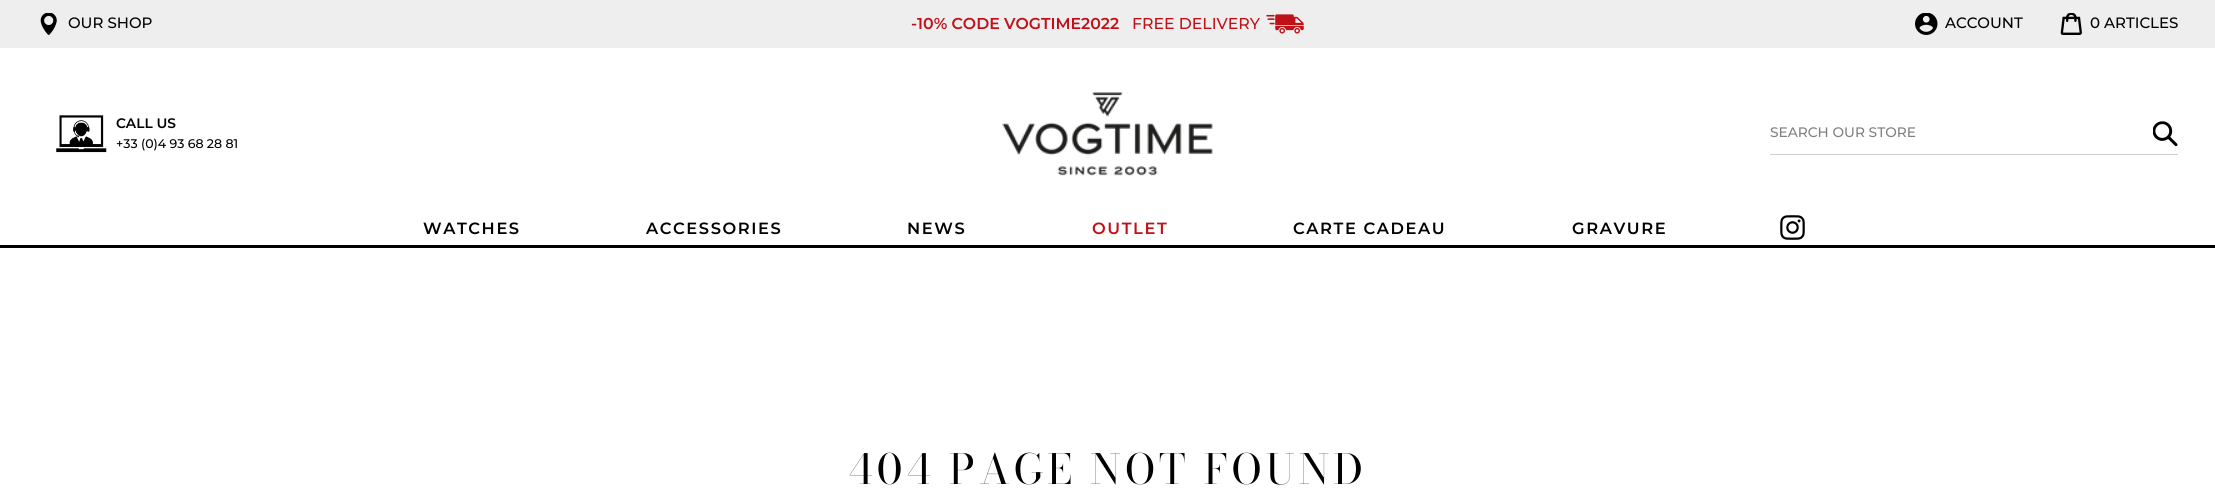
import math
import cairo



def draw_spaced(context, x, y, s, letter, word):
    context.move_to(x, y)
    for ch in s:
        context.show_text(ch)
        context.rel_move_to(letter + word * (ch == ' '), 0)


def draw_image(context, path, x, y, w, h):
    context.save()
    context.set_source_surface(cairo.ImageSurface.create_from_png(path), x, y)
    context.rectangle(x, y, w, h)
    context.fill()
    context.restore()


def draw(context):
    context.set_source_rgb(1, 1, 1)
    context.paint()
    context.set_source_rgb(238 / 255, 238 / 255, 238 / 255)
    context.rectangle(0, 0, 2215, 48)
    context.fill()
    draw_image(context, "images/1.png", 40, 13, 17, 22)
    draw_image(context, "images/2.png", 1266, 14, 38, 20)
    draw_image(context, "images/3.png", 1915, 13, 23, 22)
    draw_image(context, "images/4.png", 2060, 13, 22, 22)
    draw_image(context, "images/5.png", 56, 115, 51, 38)
    draw_image(context, "images/6.png", 1002, 92, 211, 84)
    context.set_source_rgb(208 / 255, 208 / 255, 208 / 255)
    context.rectangle(1770, 154, 408, 1)
    context.fill()
    draw_image(context, "images/7.png", 2153, 121, 25, 25)
    context.set_source_rgb(0, 0, 0)
    context.rectangle(0, 245, 2215, 3)
    context.fill()
    draw_image(context, "images/8.png", 1780, 215, 25, 25)
    context.select_font_face("Montserrat Medium")
    context.set_font_size(15)
    context.move_to(68, 28)
    context.show_text("OUR SHOP")
    context.select_font_face("Montserrat SemiBold")
    context.set_font_size(15.75)
    context.set_source_rgb(192 / 255, 17 / 255, 24 / 255)
    context.move_to(911, 29)
    context.show_text("-10% CODE VOGTIME2022")
    context.select_font_face("Montserrat Medium")
    context.move_to(1132, 29)
    context.show_text("FREE DELIVERY")
    context.set_font_size(15)
    context.set_source_rgb(0, 0, 0)
    context.move_to(1945, 28)
    context.show_text("ACCOUNT")
    context.move_to(2090, 28)
    context.show_text("0 ARTICLES")
    context.select_font_face("Montserrat SemiBold")
    context.set_font_size(13.75)
    context.move_to(116, 128)
    context.show_text("CALL US")
    context.select_font_face("Montserrat Medium")
    context.set_font_size(12.5)
    context.move_to(116, 148)
    context.show_text("+33 (0)4 93 68 28 81")
    context.set_font_size(13.75)
    context.set_source_rgb(128 / 255, 128 / 255, 128 / 255)
    context.move_to(1770, 137)
    context.show_text("SEARCH OUR STORE")
    context.select_font_face("Montserrat SemiBold")
    context.set_font_size(16.25)
    context.set_source_rgb(0, 0, 0)
    draw_spaced(context, 423, 234, "WATCHES", 1.6, 0)
    draw_spaced(context, 646, 234, "ACCESSORIES", 1.6, 0)
    draw_spaced(context, 907, 234, "NEWS", 1.6, 0)
    context.set_source_rgb(192 / 255, 17 / 255, 24 / 255)
    draw_spaced(context, 1092, 234, "OUTLET", 1.6, 0)
    context.set_source_rgb(0, 0, 0)
    draw_spaced(context, 1293, 234, "CARTE CADEAU", 1.6, 0)
    draw_spaced(context, 1572, 234, "GRAVURE", 1.6, 0)
    context.select_font_face("Bodoni Moda")
    context.set_font_size(41.25)
    draw_spaced(context, 848, 484, "404 PAGE NOT FOUND", 4.1, 0)


surface = cairo.ImageSurface(cairo.Format.RGB24, 2215, 502)
context = cairo.Context(surface)
options = cairo.FontOptions()
options.set_hint_metrics(cairo.HintMetrics.OFF)
options.set_hint_style(cairo.HintStyle.NONE)
context.set_font_options(options)
context.set_miter_limit(4)
draw(context)
surface.write_to_png("out.png")
